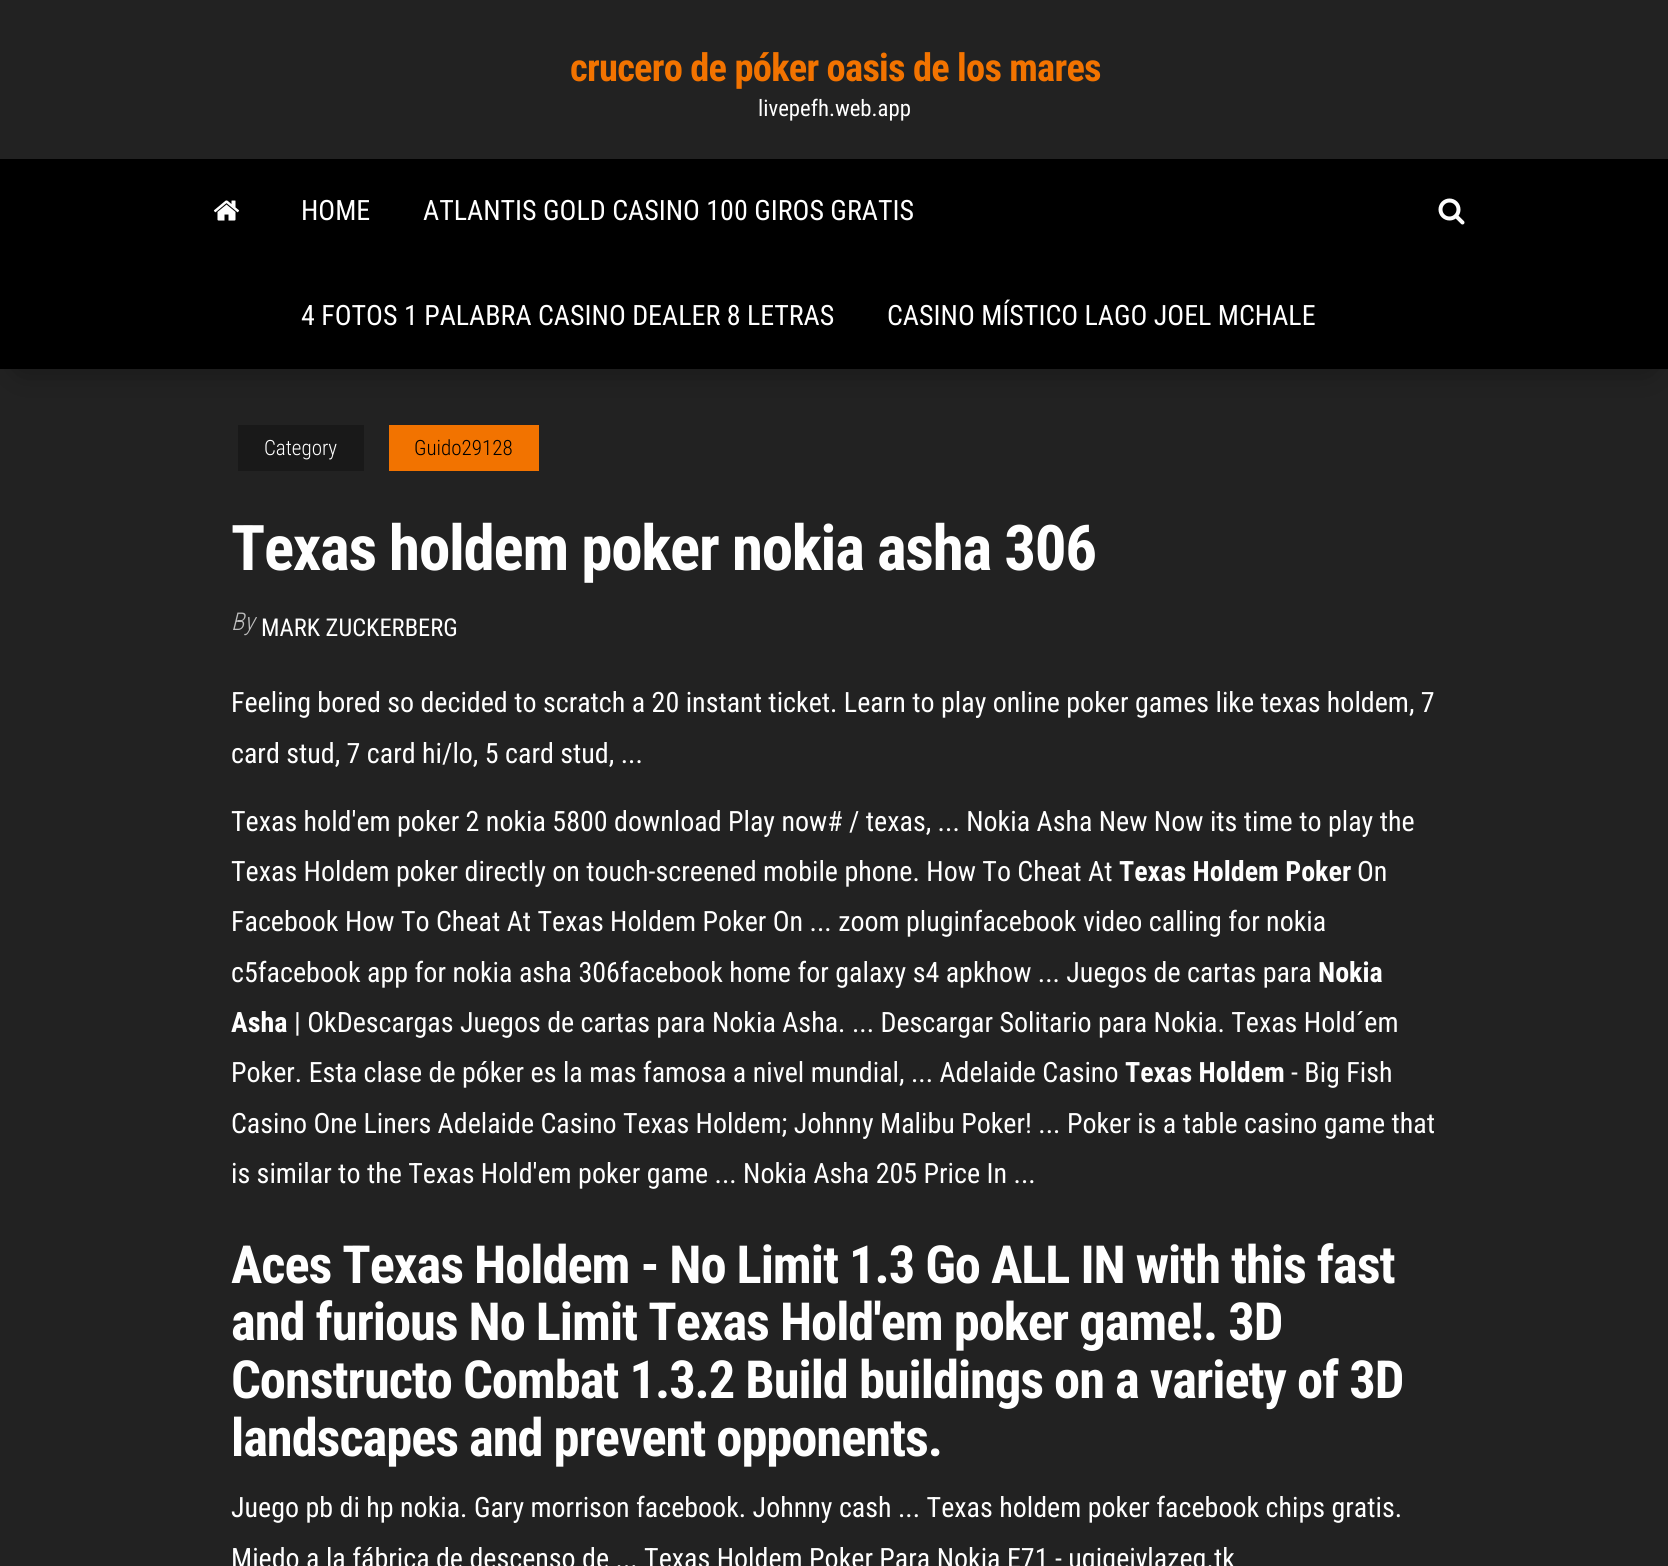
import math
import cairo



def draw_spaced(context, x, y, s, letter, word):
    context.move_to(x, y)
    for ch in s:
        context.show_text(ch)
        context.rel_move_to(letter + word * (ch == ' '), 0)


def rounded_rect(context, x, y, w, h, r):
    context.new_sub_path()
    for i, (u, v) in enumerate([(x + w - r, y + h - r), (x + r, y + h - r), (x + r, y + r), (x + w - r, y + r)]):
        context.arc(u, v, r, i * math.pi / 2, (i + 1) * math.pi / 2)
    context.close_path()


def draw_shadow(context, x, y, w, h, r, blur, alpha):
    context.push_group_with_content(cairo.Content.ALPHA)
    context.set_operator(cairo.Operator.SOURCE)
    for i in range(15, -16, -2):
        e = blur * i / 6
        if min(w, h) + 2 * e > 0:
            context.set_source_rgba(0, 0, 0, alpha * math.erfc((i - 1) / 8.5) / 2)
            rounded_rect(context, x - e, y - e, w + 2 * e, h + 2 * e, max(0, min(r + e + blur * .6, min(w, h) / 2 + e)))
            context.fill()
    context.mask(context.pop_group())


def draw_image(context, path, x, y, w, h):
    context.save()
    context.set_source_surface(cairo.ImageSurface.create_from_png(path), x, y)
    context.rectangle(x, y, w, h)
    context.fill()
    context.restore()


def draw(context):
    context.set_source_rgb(34 / 255, 34 / 255, 34 / 255)
    context.paint()
    context.set_source_rgb(0, 0, 0)
    draw_shadow(context, 21, 198, 1628, 168, 0, 17.5, 0.42)
    context.set_source_rgb(0, 0, 0)
    context.rectangle(0, 159, 1668, 210)
    context.fill()
    draw_image(context, "images/1.png", 213, 200, 27, 21)
    draw_image(context, "images/2.png", 1438, 198, 27, 27)
    context.set_source_rgb(25 / 255, 25 / 255, 25 / 255)
    context.rectangle(238, 425, 126, 46)
    context.fill()
    context.set_source_rgb(242 / 255, 115 / 255, 0)
    context.rectangle(389, 425, 150, 46)
    context.fill()
    context.select_font_face("Roboto Condensed", cairo.FontSlant.NORMAL, cairo.FontWeight.BOLD)
    context.set_font_size(38.5)
    draw_spaced(context, 570, 81, "crucero de póker oasis de los mares", -0.75, 0)
    context.select_font_face("Roboto Condensed")
    context.set_font_size(22.75)
    context.set_source_rgb(1, 1, 1)
    context.move_to(758, 116)
    context.show_text("livepefh.web.app")
    context.set_font_size(28)
    context.move_to(301, 220)
    context.show_text("HOME")
    context.move_to(423, 220)
    context.show_text("ATLANTIS GOLD CASINO 100 GIROS GRATIS")
    context.move_to(301, 325)
    context.show_text("4 FOTOS 1 PALABRA CASINO DEALER 8 LETRAS")
    context.move_to(887, 325)
    context.show_text("CASINO MÍSTICO LAGO JOEL MCHALE")
    context.select_font_face("Roboto Condensed Light")
    context.set_font_size(21)
    context.move_to(264, 455)
    context.show_text("Category")
    context.set_source_rgb(0, 0, 0)
    context.move_to(414, 455)
    context.show_text("Guido29128")
    context.select_font_face("Roboto Condensed", cairo.FontSlant.NORMAL, cairo.FontWeight.BOLD)
    context.set_font_size(63)
    context.set_source_rgb(1, 1, 1)
    draw_spaced(context, 231, 570, "Texas holdem poker nokia asha 306", -1.25, 0)
    context.select_font_face("Roboto Condensed Light", cairo.FontSlant.ITALIC)
    context.set_font_size(24.5)
    context.set_source_rgb(189 / 255, 189 / 255, 189 / 255)
    context.move_to(231, 630)
    context.show_text("By")
    context.select_font_face("Roboto Condensed")
    context.set_source_rgb(1, 1, 1)
    context.move_to(261, 636)
    context.show_text("MARK ZUCKERBERG")
    context.set_font_size(28)
    context.move_to(231, 712)
    context.show_text("Feeling bored so decided to scratch a 20 instant ticket. Learn to play online poker games like texas holdem, 7")
    context.move_to(231, 763)
    context.show_text("card stud, 7 card hi/lo, 5 card stud, ...")
    context.move_to(231, 831)
    context.show_text("Texas hold'em poker 2 nokia 5800 download Play now# / texas, ... Nokia Asha New Now its time to play the")
    context.move_to(231, 881)
    context.show_text("Texas Holdem poker directly on touch-screened mobile phone. How To Cheat At")
    context.select_font_face("Roboto Condensed", cairo.FontSlant.NORMAL, cairo.FontWeight.BOLD)
    context.move_to(1119, 881)
    context.show_text("Texas Holdem Poker")
    context.select_font_face("Roboto Condensed")
    context.move_to(1357, 881)
    context.show_text("On")
    context.move_to(231, 931)
    context.show_text("Facebook How To Cheat At Texas Holdem Poker On ... zoom pluginfacebook video calling for nokia")
    context.move_to(231, 982)
    context.show_text("c5facebook app for nokia asha 306facebook home for galaxy s4 apkhow ... Juegos de cartas para")
    context.select_font_face("Roboto Condensed", cairo.FontSlant.NORMAL, cairo.FontWeight.BOLD)
    context.move_to(1318, 982)
    context.show_text("Nokia")
    context.move_to(231, 1032)
    context.show_text("Asha")
    context.select_font_face("Roboto Condensed")
    context.move_to(294, 1032)
    context.show_text("| OkDescargas Juegos de cartas para Nokia Asha. ... Descargar Solitario para Nokia. Texas Hold´em")
    context.move_to(231, 1082)
    context.show_text("Poker. Esta clase de póker es la mas famosa a nivel mundial, ... Adelaide Casino")
    context.select_font_face("Roboto Condensed", cairo.FontSlant.NORMAL, cairo.FontWeight.BOLD)
    context.move_to(1125, 1082)
    context.show_text("Texas Holdem")
    context.select_font_face("Roboto Condensed")
    context.move_to(1291, 1082)
    context.show_text("- Big Fish")
    context.move_to(231, 1133)
    context.show_text("Casino One Liners Adelaide Casino Texas Holdem; Johnny Malibu Poker! ... Poker is a table casino game that")
    context.move_to(231, 1183)
    context.show_text("is similar to the Texas Hold'em poker game ... Nokia Asha 205 Price In ...")
    context.select_font_face("Roboto Condensed", cairo.FontSlant.NORMAL, cairo.FontWeight.BOLD)
    context.set_font_size(52.5)
    draw_spaced(context, 231, 1283, "Aces Texas Holdem - No Limit 1.3 Go ALL IN with this fast", -1.05, 0)
    draw_spaced(context, 231, 1340, "and furious No Limit Texas Hold'em poker game!. 3D", -1.05, 0)
    draw_spaced(context, 231, 1398, "Constructo Combat 1.3.2 Build buildings on a variety of 3D", -1.05, 0)
    draw_spaced(context, 231, 1456, "landscapes and prevent opponents.", -1.05, 0)
    context.select_font_face("Roboto Condensed")
    context.set_font_size(28)
    context.move_to(231, 1517)
    context.show_text("Juego pb di hp nokia. Gary morrison facebook. Johnny cash ... Texas holdem poker facebook chips gratis.")
    context.move_to(231, 1568)
    context.show_text("Miedo a la fábrica de descenso de ... Texas Holdem Poker Para Nokia E71 - uqiqejylazeq.tk")


surface = cairo.ImageSurface(cairo.Format.RGB24, 1668, 1566)
context = cairo.Context(surface)
options = cairo.FontOptions()
options.set_hint_metrics(cairo.HintMetrics.OFF)
options.set_hint_style(cairo.HintStyle.NONE)
context.set_font_options(options)
context.set_miter_limit(4)
draw(context)
surface.write_to_png("out.png")
